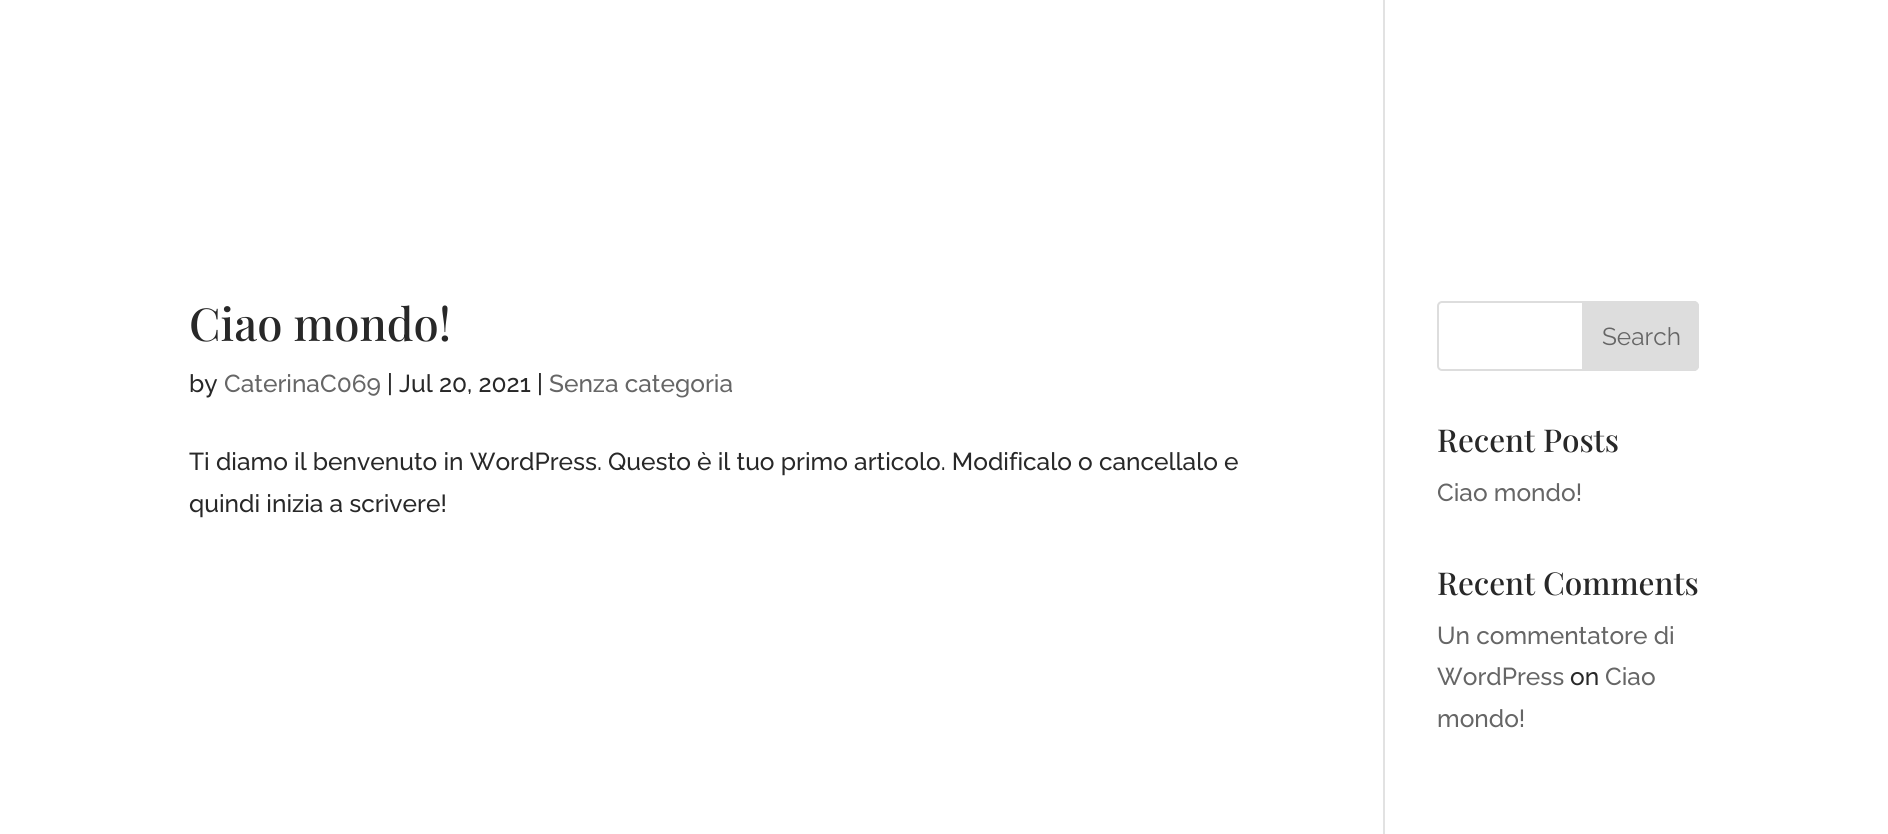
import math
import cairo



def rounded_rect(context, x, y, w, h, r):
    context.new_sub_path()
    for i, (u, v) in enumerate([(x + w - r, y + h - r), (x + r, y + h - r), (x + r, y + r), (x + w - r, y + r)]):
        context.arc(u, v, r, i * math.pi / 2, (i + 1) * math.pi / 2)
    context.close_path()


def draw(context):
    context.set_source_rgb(1, 1, 1)
    context.paint()
    context.set_source_rgb(226 / 255, 226 / 255, 226 / 255)
    context.rectangle(1383, 0, 2, 834)
    context.fill()
    rounded_rect(context, 1438, 302, 260, 68, 4)
    context.set_source_rgb(221 / 255, 221 / 255, 221 / 255)
    context.stroke()
    context.new_path()
    context.move_to(1583, 302)
    context.line_to(1694, 302)
    context.curve_to(1696, 302, 1698, 304, 1698, 306)
    context.line_to(1698, 366)
    context.curve_to(1698, 368, 1696, 370, 1694, 370)
    context.line_to(1583, 370)
    context.close_path()
    context.fill_preserve()
    context.stroke()
    context.select_font_face("Playfair Display Medium")
    context.set_font_size(45.5)
    context.set_source_rgb(40 / 255, 40 / 255, 40 / 255)
    context.move_to(189, 341)
    context.show_text("Ciao mondo!")
    context.select_font_face("Raleway Thin")
    context.set_font_size(24.5)
    context.move_to(189, 392)
    context.show_text("by")
    context.set_source_rgb(102 / 255, 102 / 255, 102 / 255)
    context.move_to(224, 392)
    context.show_text("CaterinaC069")
    context.set_source_rgb(40 / 255, 40 / 255, 40 / 255)
    context.move_to(387, 392)
    context.show_text("| Jul 20, 2021 |")
    context.set_source_rgb(102 / 255, 102 / 255, 102 / 255)
    context.move_to(549, 392)
    context.show_text("Senza categoria")
    context.set_source_rgb(40 / 255, 40 / 255, 40 / 255)
    context.move_to(189, 470)
    context.show_text("Ti diamo il benvenuto in WordPress. Questo è il tuo primo articolo. Modificalo o cancellalo e")
    context.move_to(189, 512)
    context.show_text("quindi inizia a scrivere!")
    context.select_font_face("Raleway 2 Thin")
    context.set_source_rgb(102 / 255, 102 / 255, 102 / 255)
    context.move_to(1602, 345)
    context.show_text("Search")
    context.select_font_face("Playfair Display Medium")
    context.set_font_size(31.5)
    context.set_source_rgb(40 / 255, 40 / 255, 40 / 255)
    context.move_to(1437, 452)
    context.show_text("Recent Posts")
    context.select_font_face("Raleway Thin")
    context.set_font_size(24.5)
    context.set_source_rgb(102 / 255, 102 / 255, 102 / 255)
    context.move_to(1437, 501)
    context.show_text("Ciao mondo!")
    context.select_font_face("Playfair Display Medium")
    context.set_font_size(31.5)
    context.set_source_rgb(40 / 255, 40 / 255, 40 / 255)
    context.move_to(1437, 595)
    context.show_text("Recent Comments")
    context.select_font_face("Raleway Thin")
    context.set_font_size(24.5)
    context.set_source_rgb(102 / 255, 102 / 255, 102 / 255)
    context.move_to(1437, 644)
    context.show_text("Un commentatore di")
    context.move_to(1437, 685)
    context.show_text("WordPress")
    context.set_source_rgb(40 / 255, 40 / 255, 40 / 255)
    context.move_to(1570, 685)
    context.show_text("on")
    context.set_source_rgb(102 / 255, 102 / 255, 102 / 255)
    context.move_to(1605, 685)
    context.show_text("Ciao")
    context.move_to(1437, 727)
    context.show_text("mondo!")


surface = cairo.ImageSurface(cairo.Format.RGB24, 1888, 834)
context = cairo.Context(surface)
options = cairo.FontOptions()
options.set_hint_metrics(cairo.HintMetrics.OFF)
options.set_hint_style(cairo.HintStyle.NONE)
context.set_font_options(options)
context.set_miter_limit(4)
draw(context)
surface.write_to_png("out.png")
